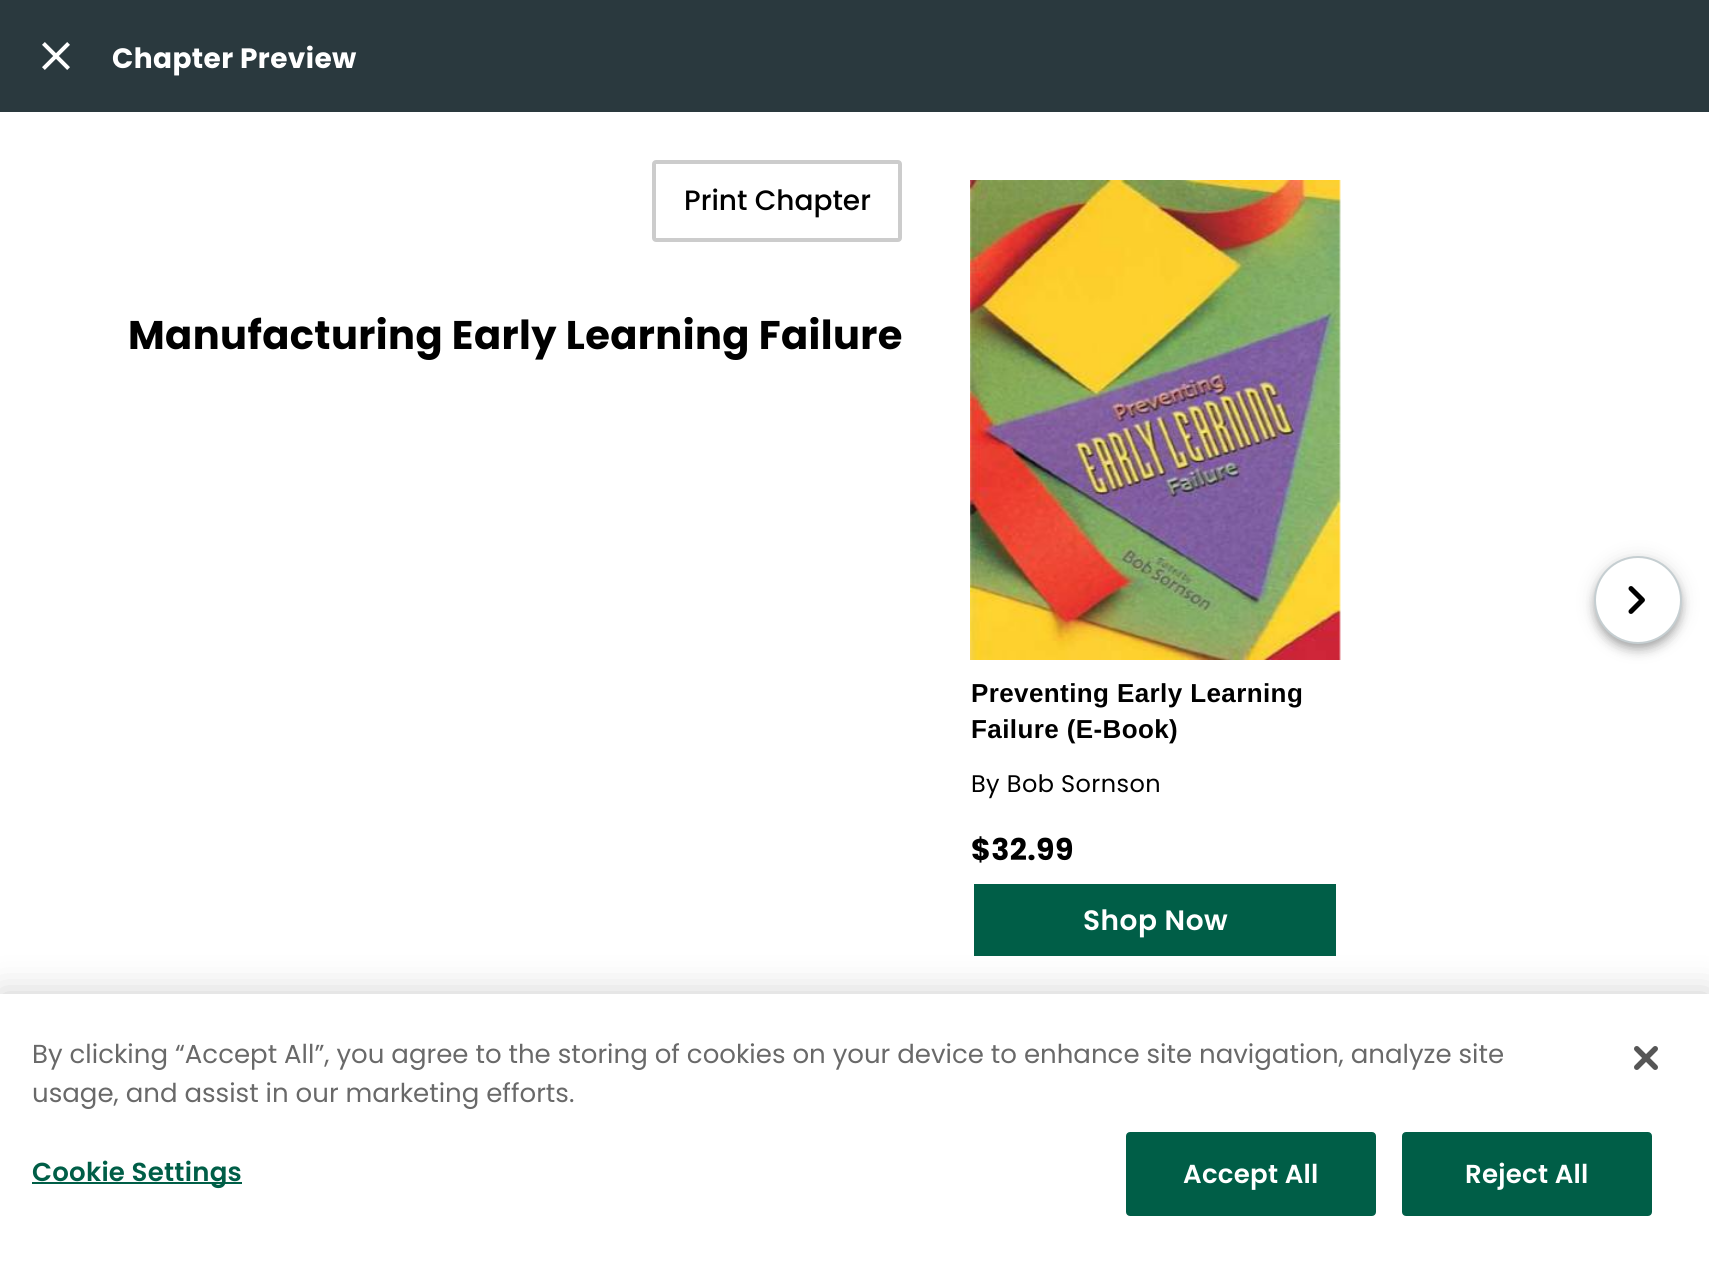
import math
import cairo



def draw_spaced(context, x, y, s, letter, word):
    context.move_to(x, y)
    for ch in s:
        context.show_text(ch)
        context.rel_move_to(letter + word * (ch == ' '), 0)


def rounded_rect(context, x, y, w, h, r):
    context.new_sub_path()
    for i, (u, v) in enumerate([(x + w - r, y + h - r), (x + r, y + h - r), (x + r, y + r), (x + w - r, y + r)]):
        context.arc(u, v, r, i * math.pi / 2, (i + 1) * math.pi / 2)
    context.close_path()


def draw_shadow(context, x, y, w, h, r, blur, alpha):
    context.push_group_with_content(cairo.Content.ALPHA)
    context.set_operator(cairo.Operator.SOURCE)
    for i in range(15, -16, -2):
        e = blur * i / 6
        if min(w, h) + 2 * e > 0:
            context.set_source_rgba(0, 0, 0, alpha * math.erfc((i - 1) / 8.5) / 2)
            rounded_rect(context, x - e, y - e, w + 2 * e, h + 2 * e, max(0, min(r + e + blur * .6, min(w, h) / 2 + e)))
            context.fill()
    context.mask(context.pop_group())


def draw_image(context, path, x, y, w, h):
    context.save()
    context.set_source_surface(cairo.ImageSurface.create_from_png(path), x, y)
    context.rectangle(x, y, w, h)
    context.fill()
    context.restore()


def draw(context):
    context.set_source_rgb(42 / 255, 57 / 255, 62 / 255)
    context.paint()
    draw_image(context, "images/1.png", 42, 42, 28, 28)
    context.set_source_rgb(1, 1, 1)
    context.rectangle(0, 112, 1709, 882)
    context.fill()
    rounded_rect(context, 654, 162, 246, 78, 2)
    context.set_source_rgb(204 / 255, 204 / 255, 204 / 255)
    context.set_line_width(4)
    context.stroke()
    draw_image(context, "images/2.png", 970, 180, 371, 480)
    context.set_source_rgb(0, 94 / 255, 71 / 255)
    rounded_rect(context, 972, 882, 366, 76, 2)
    context.fill_preserve()
    context.set_source_rgb(1, 1, 1)
    context.stroke()
    context.set_source_rgb(0, 0, 0)
    draw_shadow(context, 1594, 558, 88, 88, 44, 10, 0.12)
    draw_shadow(context, 1594, 564, 88, 88, 44, 5, 0.14)
    draw_shadow(context, 1596, 562, 84, 84, 42, 4, 0.2)
    context.set_source_rgb(1, 1, 1)
    context.arc(1638, 600, 43, 0, 2 * math.pi)
    context.fill_preserve()
    context.set_source_rgb(197 / 255, 206 / 255, 209 / 255)
    context.set_line_width(2)
    context.stroke()
    draw_image(context, "images/3.png", 1628, 586, 17, 28)
    context.set_source_rgb(0, 0, 0)
    draw_shadow(context, 0, 994, 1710, 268, 0, 18, 0.2)
    context.set_source_rgb(1, 1, 1)
    context.rectangle(0, 994, 1709, 267)
    context.fill()
    context.set_source_rgb(0, 94 / 255, 71 / 255)
    context.rectangle(32, 1182, 210, 2)
    context.fill()
    rounded_rect(context, 1127, 1133, 248, 82, 3)
    context.fill_preserve()
    context.stroke()
    rounded_rect(context, 1403, 1133, 248, 82, 3)
    context.fill_preserve()
    context.stroke()
    draw_image(context, "images/4.png", 1634, 1046, 24, 24)
    context.select_font_face("Poppins", cairo.FontSlant.NORMAL, cairo.FontWeight.BOLD)
    context.set_font_size(28)
    context.set_source_rgb(1, 1, 1)
    draw_spaced(context, 112, 68, "Chapter Preview", 0.4, 0)
    context.select_font_face("Poppins Medium")
    context.set_source_rgb(0, 0, 0)
    context.move_to(684, 210)
    context.show_text("Print Chapter")
    context.select_font_face("Poppins", cairo.FontSlant.NORMAL, cairo.FontWeight.BOLD)
    context.set_font_size(40)
    draw_spaced(context, 128, 349, "Manufacturing Early Learning Failure", 0.4, 0)
    context.select_font_face("Liberation Sans", cairo.FontSlant.NORMAL, cairo.FontWeight.BOLD)
    context.set_font_size(26)
    draw_spaced(context, 971, 702, "Preventing Early Learning", 0.4, 0)
    draw_spaced(context, 971, 738, "Failure (E-Book)", 0.4, 0)
    context.select_font_face("Poppins")
    context.set_font_size(24)
    draw_spaced(context, 971, 792, "By Bob Sornson", 0.4, 0)
    context.select_font_face("Poppins", cairo.FontSlant.NORMAL, cairo.FontWeight.BOLD)
    context.set_font_size(30)
    draw_spaced(context, 971, 860, "$32.99", 0.4, 0)
    context.select_font_face("Poppins SemiBold")
    context.set_font_size(28)
    context.set_source_rgb(1, 1, 1)
    draw_spaced(context, 1083, 930, "Shop Now", 0.5, 0)
    context.select_font_face("Poppins")
    context.set_font_size(26.02)
    context.set_source_rgb(105 / 255, 105 / 255, 105 / 255)
    context.move_to(32, 1063)
    context.show_text("By clicking “Accept All”, you agree to the storing of cookies on your device to enhance site navigation, analyze site")
    context.move_to(32, 1102)
    context.show_text("usage, and assist in our marketing efforts.")
    context.select_font_face("Poppins SemiBold")
    context.set_source_rgb(0, 94 / 255, 71 / 255)
    draw_spaced(context, 32, 1181, "Cookie Settings", 0.25, 0)
    context.set_source_rgb(1, 1, 1)
    draw_spaced(context, 1183, 1183, "Accept All", 0.25, 0)
    draw_spaced(context, 1465, 1183, "Reject All", 0.25, 0)


surface = cairo.ImageSurface(cairo.Format.RGB24, 1709, 1261)
context = cairo.Context(surface)
options = cairo.FontOptions()
options.set_hint_metrics(cairo.HintMetrics.OFF)
options.set_hint_style(cairo.HintStyle.NONE)
context.set_font_options(options)
context.set_miter_limit(4)
draw(context)
surface.write_to_png("out.png")
